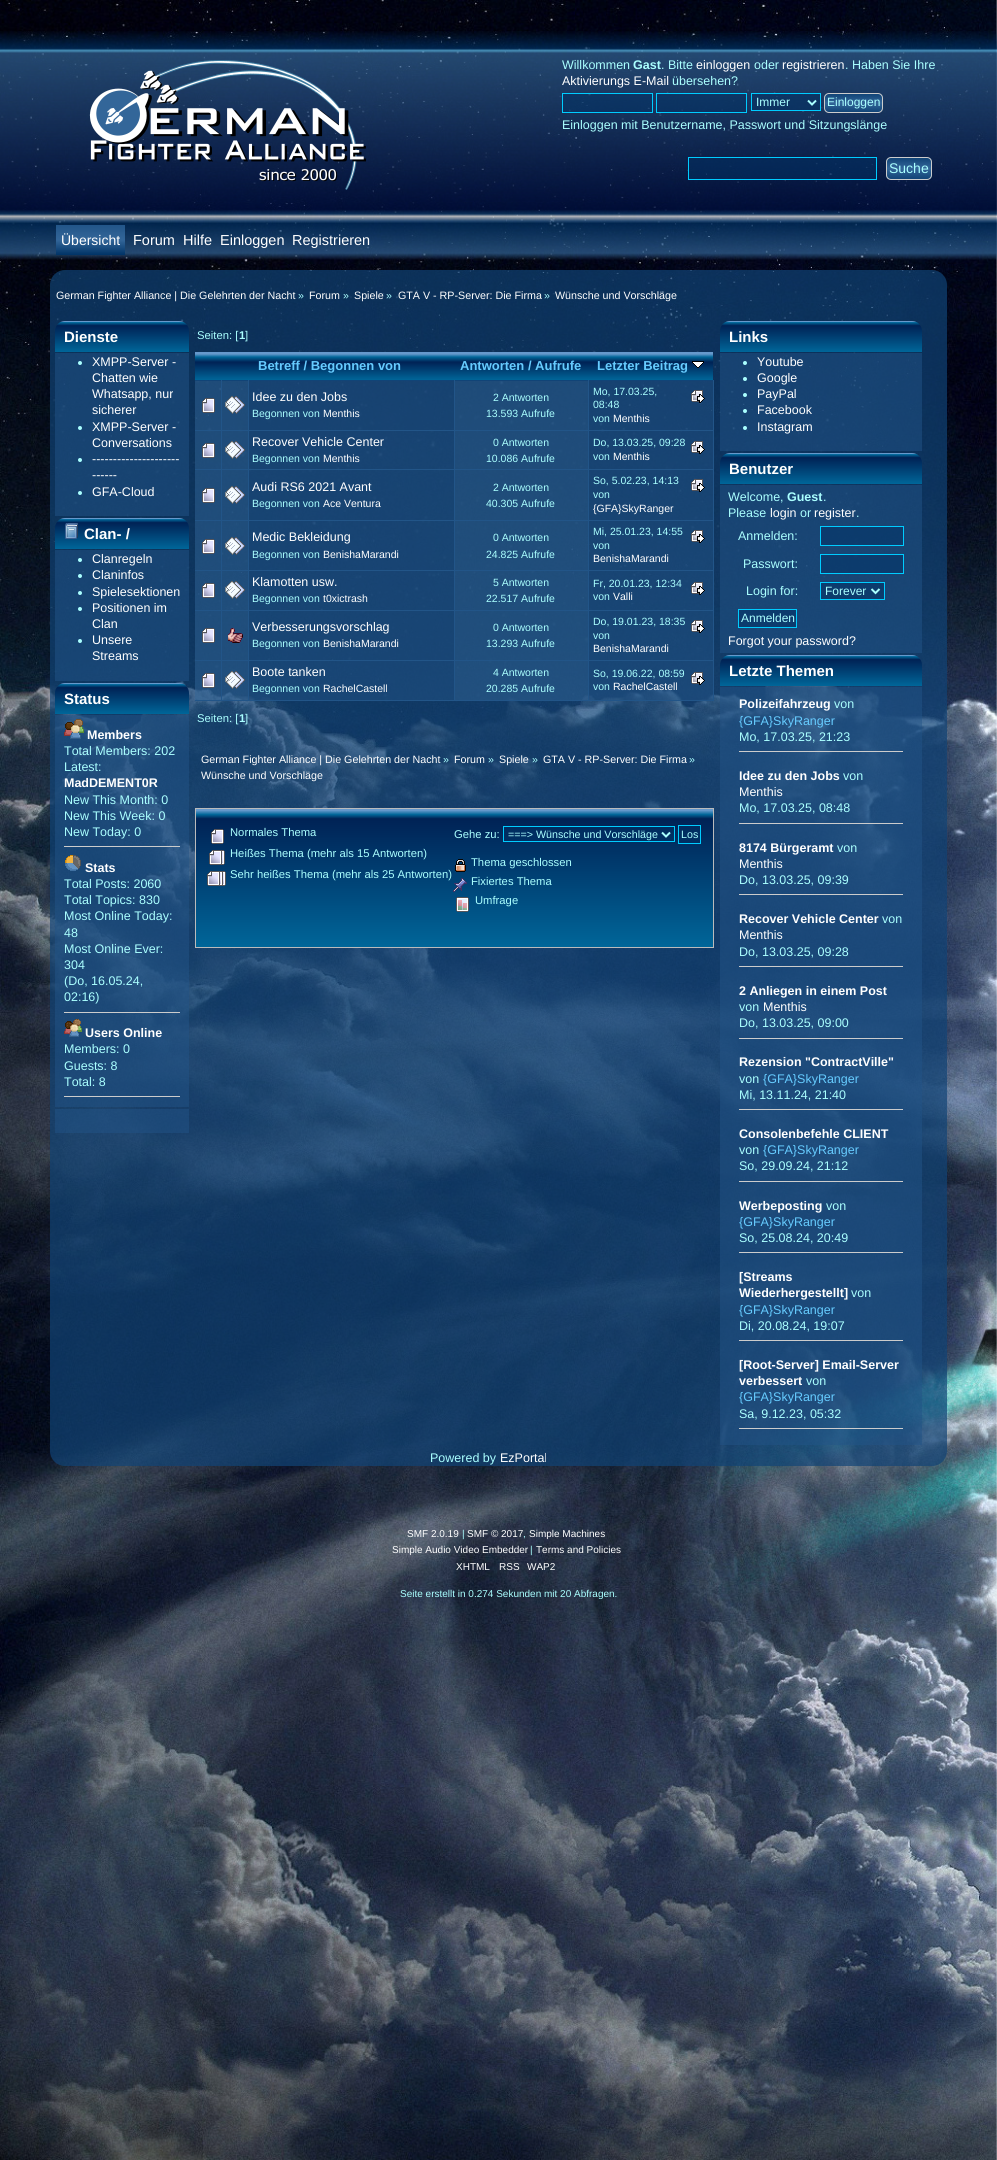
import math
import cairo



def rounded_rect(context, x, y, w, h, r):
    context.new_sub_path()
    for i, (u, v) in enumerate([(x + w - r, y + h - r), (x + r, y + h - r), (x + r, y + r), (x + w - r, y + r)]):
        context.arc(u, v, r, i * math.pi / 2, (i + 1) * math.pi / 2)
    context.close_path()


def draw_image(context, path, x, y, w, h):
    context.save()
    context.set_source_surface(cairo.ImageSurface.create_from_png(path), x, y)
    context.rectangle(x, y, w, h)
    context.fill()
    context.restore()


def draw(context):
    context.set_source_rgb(1, 1, 1)
    context.paint()
    draw_image(context, "images/1.png", 0, 0, 997, 2160)
    gradient = cairo.LinearGradient(499, 30, 499, 260)
    gradient.add_color_stop_rgba(0, 0, 51 / 255, 102 / 255, 0)
    gradient.add_color_stop_rgba(0.08, 0, 51 / 255, 102 / 255, 0.7)
    gradient.add_color_stop_rgba(0.09, 102 / 255, 204 / 255, 1, 0.7)
    gradient.add_color_stop_rgba(0.1, 51 / 255, 102 / 255, 153 / 255, 0.7)
    gradient.add_color_stop_rgba(0.78, 0, 17 / 255, 68 / 255, 0.7)
    gradient.add_color_stop_rgba(0.8, 17 / 255, 68 / 255, 119 / 255, 0.7)
    gradient.add_color_stop_rgba(0.81, 1, 1, 1, 0.7)
    gradient.add_color_stop_rgba(0.83, 51 / 255, 102 / 255, 153 / 255, 0.7)
    gradient.add_color_stop_rgba(0.84, 0, 51 / 255, 102 / 255, 0.7)
    gradient.add_color_stop_rgba(0.97, 51 / 255, 102 / 255, 153 / 255, 0.7)
    gradient.add_color_stop_rgba(1, 51 / 255, 102 / 255, 153 / 255, 0)
    context.set_source(gradient)
    context.rectangle(0, 31, 997, 229)
    context.fill()
    context.set_source_rgba(0, 51 / 255, 102 / 255, 0.5)
    context.rectangle(562.5, 93.5, 90, 19)
    context.fill_preserve()
    context.set_source_rgb(0, 204 / 255, 1)
    context.set_line_width(1)
    context.stroke()
    context.set_source_rgba(0, 51 / 255, 102 / 255, 0.5)
    context.rectangle(656.5, 93.5, 90, 19)
    context.fill_preserve()
    context.set_source_rgb(0, 204 / 255, 1)
    context.stroke()
    context.set_source_rgba(0, 51 / 255, 102 / 255, 0.5)
    context.rectangle(751.5, 93.5, 69, 17)
    context.fill_preserve()
    context.set_source_rgb(0, 204 / 255, 1)
    context.stroke()
    context.new_path()
    context.move_to(808, 100.5)
    context.line_to(812, 104.5)
    context.line_to(816, 100.5)
    context.set_source_rgb(170 / 255, 1, 1)
    context.set_line_width(2)
    context.stroke()
    context.save()
    rounded_rect(context, 824, 93, 59, 20, 5)
    context.clip()
    gradient = cairo.LinearGradient(854, 94, 854, 112)
    gradient.add_color_stop_rgba(0, 17 / 255, 68 / 255, 119 / 255, 1)
    gradient.add_color_stop_rgba(0.5, 51 / 255, 102 / 255, 153 / 255, 1)
    gradient.add_color_stop_rgba(1, 17 / 255, 68 / 255, 119 / 255, 1)
    context.set_source(gradient)
    context.rectangle(824, 94, 59, 18)
    context.fill()
    context.restore()
    rounded_rect(context, 824.5, 93.5, 58, 19, 4.5)
    context.set_source_rgb(204 / 255, 204 / 255, 204 / 255)
    context.set_line_width(1)
    context.stroke()
    context.set_source_rgba(0, 51 / 255, 102 / 255, 0.5)
    context.rectangle(688.5, 157.5, 188, 22)
    context.fill_preserve()
    context.set_source_rgb(0, 204 / 255, 1)
    context.stroke()
    context.save()
    rounded_rect(context, 886, 157, 46, 23, 5)
    context.clip()
    gradient = cairo.LinearGradient(909, 158, 909, 179)
    gradient.add_color_stop_rgba(0, 17 / 255, 68 / 255, 119 / 255, 1)
    gradient.add_color_stop_rgba(0.5, 51 / 255, 102 / 255, 153 / 255, 1)
    gradient.add_color_stop_rgba(1, 17 / 255, 68 / 255, 119 / 255, 1)
    context.set_source(gradient)
    context.rectangle(886, 158, 46, 21)
    context.fill()
    context.restore()
    rounded_rect(context, 886.5, 157.5, 45, 22, 4.5)
    context.set_source_rgb(204 / 255, 204 / 255, 204 / 255)
    context.stroke()
    gradient = cairo.LinearGradient(91, 255, 91, 225)
    gradient.add_color_stop_rgba(0, 0, 51 / 255, 102 / 255, 1)
    gradient.add_color_stop_rgba(0.5, 51 / 255, 102 / 255, 153 / 255, 1)
    gradient.add_color_stop_rgba(1, 34 / 255, 85 / 255, 136 / 255, 1)
    context.set_source(gradient)
    context.rectangle(56, 225, 69, 30)
    context.fill()
    draw_image(context, "images/2.png", 90, 60, 276, 130)
    context.set_source_rgba(17 / 255, 68 / 255, 119 / 255, 0.7)
    rounded_rect(context, 50, 270, 897, 1196, 15)
    context.fill()
    gradient = cairo.LinearGradient(122, 321, 122, 352)
    gradient.add_color_stop_rgba(0.02, 102 / 255, 153 / 255, 204 / 255, 1)
    gradient.add_color_stop_rgba(0.05, 0, 102 / 255, 153 / 255, 1)
    gradient.add_color_stop_rgba(0.15, 0, 34 / 255, 85 / 255, 1)
    gradient.add_color_stop_rgba(1, 0, 102 / 255, 153 / 255, 1)
    context.set_source(gradient)
    context.new_path()
    context.move_to(65, 321)
    context.line_to(179, 321)
    context.curve_to(184.5, 321, 189, 325.5, 189, 331)
    context.line_to(189, 352)
    context.line_to(55, 352)
    context.line_to(55, 331)
    context.curve_to(55, 325.5, 59.5, 321, 65, 321)
    context.close_path()
    context.fill()
    context.set_source_rgba(34 / 255, 85 / 255, 136 / 255, 0.5)
    context.rectangle(55, 353, 134, 163)
    context.fill()
    context.set_source_rgb(170 / 255, 1, 1)
    context.arc(80, 363, 2, 0, 2 * math.pi)
    context.fill()
    context.arc(80, 428, 2, 0, 2 * math.pi)
    context.fill()
    context.arc(80, 460, 2, 0, 2 * math.pi)
    context.fill()
    context.arc(80, 493, 2, 0, 2 * math.pi)
    context.fill()
    gradient = cairo.LinearGradient(122, 518, 122, 549)
    gradient.add_color_stop_rgba(0.02, 102 / 255, 153 / 255, 204 / 255, 1)
    gradient.add_color_stop_rgba(0.05, 0, 102 / 255, 153 / 255, 1)
    gradient.add_color_stop_rgba(0.15, 0, 34 / 255, 85 / 255, 1)
    gradient.add_color_stop_rgba(1, 0, 102 / 255, 153 / 255, 1)
    context.set_source(gradient)
    context.new_path()
    context.move_to(65, 518)
    context.line_to(179, 518)
    context.curve_to(184.5, 518, 189, 522.5, 189, 528)
    context.line_to(189, 549)
    context.line_to(55, 549)
    context.line_to(55, 528)
    context.curve_to(55, 522.5, 59.5, 518, 65, 518)
    context.close_path()
    context.fill()
    draw_image(context, "images/3.png", 65, 523, 13, 16)
    context.set_source_rgba(34 / 255, 85 / 255, 136 / 255, 0.5)
    context.rectangle(55, 550, 134, 131)
    context.fill()
    context.set_source_rgb(170 / 255, 1, 1)
    context.arc(80, 560, 2, 0, 2 * math.pi)
    context.fill()
    context.arc(80, 576, 2, 0, 2 * math.pi)
    context.fill()
    context.arc(80, 593, 2, 0, 2 * math.pi)
    context.fill()
    context.arc(80, 609, 2, 0, 2 * math.pi)
    context.fill()
    context.arc(80, 641, 2, 0, 2 * math.pi)
    context.fill()
    gradient = cairo.LinearGradient(122, 683, 122, 714)
    gradient.add_color_stop_rgba(0.02, 102 / 255, 153 / 255, 204 / 255, 1)
    gradient.add_color_stop_rgba(0.05, 0, 102 / 255, 153 / 255, 1)
    gradient.add_color_stop_rgba(0.15, 0, 34 / 255, 85 / 255, 1)
    gradient.add_color_stop_rgba(1, 0, 102 / 255, 153 / 255, 1)
    context.set_source(gradient)
    context.new_path()
    context.move_to(65, 683)
    context.line_to(179, 683)
    context.curve_to(184.5, 683, 189, 687.5, 189, 693)
    context.line_to(189, 714)
    context.line_to(55, 714)
    context.line_to(55, 693)
    context.curve_to(55, 687.5, 59.5, 683, 65, 683)
    context.close_path()
    context.fill()
    context.set_source_rgba(34 / 255, 85 / 255, 136 / 255, 0.5)
    context.rectangle(55, 715, 134, 392)
    context.fill()
    draw_image(context, "images/4.png", 64, 719, 20, 20)
    context.set_source_rgb(204 / 255, 204 / 255, 204 / 255)
    context.rectangle(64, 846, 116, 1)
    context.fill()
    draw_image(context, "images/5.png", 65, 855, 16, 16)
    context.rectangle(64, 1012, 116, 1)
    context.fill()
    draw_image(context, "images/6.png", 64, 1019, 18, 18)
    context.rectangle(64, 1096, 116, 1)
    context.fill()
    context.set_source_rgba(34 / 255, 85 / 255, 136 / 255, 0.5)
    context.rectangle(55, 1109, 134, 24)
    context.fill()
    context.set_source_rgb(17 / 255, 68 / 255, 119 / 255)
    context.rectangle(195, 380, 519, 1)
    context.fill()
    gradient = cairo.LinearGradient(222, 352, 222, 380)
    gradient.add_color_stop_rgba(0.07, 102 / 255, 153 / 255, 204 / 255, 1)
    gradient.add_color_stop_rgba(0.18, 0, 102 / 255, 153 / 255, 1)
    gradient.add_color_stop_rgba(0.36, 0, 34 / 255, 85 / 255, 1)
    gradient.add_color_stop_rgba(1, 0, 102 / 255, 153 / 255, 1)
    context.set_source(gradient)
    context.rectangle(195, 352, 54, 28)
    context.fill()
    gradient = cairo.LinearGradient(352, 352, 352, 380)
    gradient.add_color_stop_rgba(0.07, 102 / 255, 153 / 255, 204 / 255, 1)
    gradient.add_color_stop_rgba(0.18, 0, 102 / 255, 153 / 255, 1)
    gradient.add_color_stop_rgba(0.36, 0, 34 / 255, 85 / 255, 1)
    gradient.add_color_stop_rgba(1, 0, 102 / 255, 153 / 255, 1)
    context.set_source(gradient)
    context.rectangle(249, 352, 205, 28)
    context.fill()
    gradient = cairo.LinearGradient(521, 352, 521, 380)
    gradient.add_color_stop_rgba(0.07, 102 / 255, 153 / 255, 204 / 255, 1)
    gradient.add_color_stop_rgba(0.18, 0, 102 / 255, 153 / 255, 1)
    gradient.add_color_stop_rgba(0.36, 0, 34 / 255, 85 / 255, 1)
    gradient.add_color_stop_rgba(1, 0, 102 / 255, 153 / 255, 1)
    context.set_source(gradient)
    context.rectangle(454, 352, 134, 28)
    context.fill()
    gradient = cairo.LinearGradient(651, 352, 651, 380)
    gradient.add_color_stop_rgba(0.07, 102 / 255, 153 / 255, 204 / 255, 1)
    gradient.add_color_stop_rgba(0.18, 0, 102 / 255, 153 / 255, 1)
    gradient.add_color_stop_rgba(0.36, 0, 34 / 255, 85 / 255, 1)
    gradient.add_color_stop_rgba(1, 0, 102 / 255, 153 / 255, 1)
    context.set_source(gradient)
    context.rectangle(588, 352, 125, 28)
    context.fill()
    draw_image(context, "images/7.png", 692, 361, 12, 7)
    context.set_source_rgba(51 / 255, 102 / 255, 153 / 255, 0.5)
    context.rectangle(195, 381, 26, 49)
    context.fill()
    context.set_source_rgb(34 / 255, 85 / 255, 136 / 255)
    context.rectangle(713, 380, 1, 321)
    context.fill()
    context.rectangle(588, 700, 126, 1)
    context.fill()
    context.rectangle(588, 660, 1, 41)
    context.fill()
    context.rectangle(588, 660, 126, 1)
    context.fill()
    context.rectangle(588, 610, 1, 51)
    context.fill()
    context.rectangle(588, 610, 126, 1)
    context.fill()
    context.rectangle(588, 570, 1, 41)
    context.fill()
    context.rectangle(588, 570, 126, 1)
    context.fill()
    context.rectangle(588, 520, 1, 51)
    context.fill()
    context.rectangle(588, 520, 126, 1)
    context.fill()
    context.rectangle(588, 469, 1, 52)
    context.fill()
    context.rectangle(588, 469, 126, 1)
    context.fill()
    context.rectangle(588, 430, 1, 40)
    context.fill()
    context.rectangle(588, 430, 126, 1)
    context.fill()
    context.rectangle(588, 380, 1, 51)
    context.fill()
    context.rectangle(454, 700, 135, 1)
    context.fill()
    context.rectangle(454, 660, 1, 41)
    context.fill()
    context.rectangle(454, 660, 135, 1)
    context.fill()
    context.rectangle(454, 610, 1, 51)
    context.fill()
    context.rectangle(454, 610, 135, 1)
    context.fill()
    context.rectangle(454, 570, 1, 41)
    context.fill()
    context.rectangle(454, 570, 135, 1)
    context.fill()
    context.rectangle(454, 520, 1, 51)
    context.fill()
    context.rectangle(454, 520, 135, 1)
    context.fill()
    context.rectangle(454, 469, 1, 52)
    context.fill()
    context.rectangle(454, 469, 135, 1)
    context.fill()
    context.rectangle(454, 430, 1, 40)
    context.fill()
    context.rectangle(454, 430, 135, 1)
    context.fill()
    context.rectangle(454, 380, 1, 51)
    context.fill()
    context.rectangle(248, 700, 207, 1)
    context.fill()
    context.rectangle(248, 660, 1, 41)
    context.fill()
    context.rectangle(248, 660, 207, 1)
    context.fill()
    context.rectangle(248, 610, 1, 51)
    context.fill()
    context.rectangle(248, 610, 207, 1)
    context.fill()
    context.rectangle(248, 570, 1, 41)
    context.fill()
    context.rectangle(248, 570, 207, 1)
    context.fill()
    context.rectangle(248, 520, 1, 51)
    context.fill()
    context.rectangle(248, 520, 207, 1)
    context.fill()
    context.rectangle(248, 469, 1, 52)
    context.fill()
    context.rectangle(248, 469, 207, 1)
    context.fill()
    context.rectangle(248, 430, 1, 40)
    context.fill()
    context.rectangle(248, 430, 207, 1)
    context.fill()
    context.rectangle(248, 380, 1, 51)
    context.fill()
    context.rectangle(221, 700, 28, 1)
    context.fill()
    context.rectangle(221, 660, 1, 41)
    context.fill()
    context.rectangle(221, 660, 28, 1)
    context.fill()
    context.rectangle(221, 610, 1, 51)
    context.fill()
    context.rectangle(221, 610, 28, 1)
    context.fill()
    context.rectangle(221, 570, 1, 41)
    context.fill()
    context.rectangle(221, 570, 28, 1)
    context.fill()
    context.rectangle(221, 520, 1, 51)
    context.fill()
    context.rectangle(221, 520, 28, 1)
    context.fill()
    context.rectangle(221, 469, 1, 52)
    context.fill()
    context.rectangle(221, 469, 28, 1)
    context.fill()
    context.rectangle(221, 430, 1, 40)
    context.fill()
    context.rectangle(221, 430, 28, 1)
    context.fill()
    context.rectangle(221, 380, 1, 51)
    context.fill()
    context.rectangle(195, 430, 27, 1)
    context.fill()
    draw_image(context, "images/8.png", 202, 398, 13, 15)
    context.set_source_rgba(51 / 255, 102 / 255, 153 / 255, 0.5)
    context.rectangle(222, 381, 26, 49)
    context.fill()
    draw_image(context, "images/9.png", 225, 396, 20, 18)
    context.set_source_rgba(34 / 255, 85 / 255, 136 / 255, 0.5)
    context.rectangle(249, 381, 205, 49)
    context.fill()
    context.set_source_rgba(51 / 255, 102 / 255, 153 / 255, 0.5)
    context.rectangle(455, 381, 133, 49)
    context.fill()
    context.set_source_rgba(34 / 255, 85 / 255, 136 / 255, 0.5)
    context.rectangle(589, 381, 124, 49)
    context.fill()
    draw_image(context, "images/10.png", 691, 390, 14, 13)
    context.set_source_rgba(51 / 255, 102 / 255, 153 / 255, 0.5)
    context.rectangle(195, 431, 26, 38)
    context.fill()
    context.set_source_rgb(34 / 255, 85 / 255, 136 / 255)
    context.rectangle(195, 469, 27, 1)
    context.fill()
    draw_image(context, "images/11.png", 202, 443, 13, 15)
    context.set_source_rgba(51 / 255, 102 / 255, 153 / 255, 0.5)
    context.rectangle(222, 431, 26, 38)
    context.fill()
    draw_image(context, "images/12.png", 225, 441, 20, 18)
    context.set_source_rgba(34 / 255, 85 / 255, 136 / 255, 0.5)
    context.rectangle(249, 431, 205, 38)
    context.fill()
    context.set_source_rgba(51 / 255, 102 / 255, 153 / 255, 0.5)
    context.rectangle(455, 431, 133, 38)
    context.fill()
    context.set_source_rgba(34 / 255, 85 / 255, 136 / 255, 0.5)
    context.rectangle(589, 431, 124, 38)
    context.fill()
    draw_image(context, "images/13.png", 691, 441, 14, 13)
    context.set_source_rgba(51 / 255, 102 / 255, 153 / 255, 0.5)
    context.rectangle(195, 470, 26, 50)
    context.fill()
    context.set_source_rgb(34 / 255, 85 / 255, 136 / 255)
    context.rectangle(195, 520, 27, 1)
    context.fill()
    draw_image(context, "images/14.png", 202, 488, 13, 15)
    context.set_source_rgba(51 / 255, 102 / 255, 153 / 255, 0.5)
    context.rectangle(222, 470, 26, 50)
    context.fill()
    draw_image(context, "images/15.png", 225, 486, 20, 18)
    context.set_source_rgba(34 / 255, 85 / 255, 136 / 255, 0.5)
    context.rectangle(249, 470, 205, 50)
    context.fill()
    context.set_source_rgba(51 / 255, 102 / 255, 153 / 255, 0.5)
    context.rectangle(455, 470, 133, 50)
    context.fill()
    context.set_source_rgba(34 / 255, 85 / 255, 136 / 255, 0.5)
    context.rectangle(589, 470, 124, 50)
    context.fill()
    draw_image(context, "images/16.png", 691, 479, 14, 13)
    context.set_source_rgba(51 / 255, 102 / 255, 153 / 255, 0.5)
    context.rectangle(195, 521, 26, 49)
    context.fill()
    context.set_source_rgb(34 / 255, 85 / 255, 136 / 255)
    context.rectangle(195, 570, 27, 1)
    context.fill()
    draw_image(context, "images/17.png", 202, 539, 13, 15)
    context.set_source_rgba(51 / 255, 102 / 255, 153 / 255, 0.5)
    context.rectangle(222, 521, 26, 49)
    context.fill()
    draw_image(context, "images/18.png", 225, 537, 20, 18)
    context.set_source_rgba(34 / 255, 85 / 255, 136 / 255, 0.5)
    context.rectangle(249, 521, 205, 49)
    context.fill()
    context.set_source_rgba(51 / 255, 102 / 255, 153 / 255, 0.5)
    context.rectangle(455, 521, 133, 49)
    context.fill()
    context.set_source_rgba(34 / 255, 85 / 255, 136 / 255, 0.5)
    context.rectangle(589, 521, 124, 49)
    context.fill()
    draw_image(context, "images/19.png", 691, 530, 14, 13)
    context.set_source_rgba(51 / 255, 102 / 255, 153 / 255, 0.5)
    context.rectangle(195, 571, 26, 39)
    context.fill()
    context.set_source_rgb(34 / 255, 85 / 255, 136 / 255)
    context.rectangle(195, 610, 27, 1)
    context.fill()
    draw_image(context, "images/20.png", 202, 583, 13, 15)
    context.set_source_rgba(51 / 255, 102 / 255, 153 / 255, 0.5)
    context.rectangle(222, 571, 26, 39)
    context.fill()
    draw_image(context, "images/21.png", 225, 581, 20, 18)
    context.set_source_rgba(34 / 255, 85 / 255, 136 / 255, 0.5)
    context.rectangle(249, 571, 205, 39)
    context.fill()
    context.set_source_rgba(51 / 255, 102 / 255, 153 / 255, 0.5)
    context.rectangle(455, 571, 133, 39)
    context.fill()
    context.set_source_rgba(34 / 255, 85 / 255, 136 / 255, 0.5)
    context.rectangle(589, 571, 124, 39)
    context.fill()
    draw_image(context, "images/22.png", 691, 582, 14, 13)
    context.set_source_rgba(51 / 255, 102 / 255, 153 / 255, 0.5)
    context.rectangle(195, 611, 26, 49)
    context.fill()
    context.set_source_rgb(34 / 255, 85 / 255, 136 / 255)
    context.rectangle(195, 660, 27, 1)
    context.fill()
    draw_image(context, "images/23.png", 202, 628, 13, 15)
    context.set_source_rgba(51 / 255, 102 / 255, 153 / 255, 0.5)
    context.rectangle(222, 611, 26, 49)
    context.fill()
    draw_image(context, "images/24.png", 228, 628, 15, 15)
    context.set_source_rgba(34 / 255, 85 / 255, 136 / 255, 0.5)
    context.rectangle(249, 611, 205, 49)
    context.fill()
    context.set_source_rgba(51 / 255, 102 / 255, 153 / 255, 0.5)
    context.rectangle(455, 611, 133, 49)
    context.fill()
    context.set_source_rgba(34 / 255, 85 / 255, 136 / 255, 0.5)
    context.rectangle(589, 611, 124, 49)
    context.fill()
    draw_image(context, "images/25.png", 691, 620, 14, 13)
    context.set_source_rgba(51 / 255, 102 / 255, 153 / 255, 0.5)
    context.rectangle(195, 661, 26, 39)
    context.fill()
    context.set_source_rgb(34 / 255, 85 / 255, 136 / 255)
    context.rectangle(195, 700, 27, 1)
    context.fill()
    draw_image(context, "images/26.png", 202, 673, 13, 15)
    context.set_source_rgba(51 / 255, 102 / 255, 153 / 255, 0.5)
    context.rectangle(222, 661, 26, 39)
    context.fill()
    draw_image(context, "images/27.png", 225, 671, 20, 18)
    context.set_source_rgba(34 / 255, 85 / 255, 136 / 255, 0.5)
    context.rectangle(249, 661, 205, 39)
    context.fill()
    context.set_source_rgba(51 / 255, 102 / 255, 153 / 255, 0.5)
    context.rectangle(455, 661, 133, 39)
    context.fill()
    context.set_source_rgba(34 / 255, 85 / 255, 136 / 255, 0.5)
    context.rectangle(589, 661, 124, 39)
    context.fill()
    draw_image(context, "images/28.png", 691, 672, 14, 13)
    gradient = cairo.LinearGradient(455, 809, 455, 947)
    gradient.add_color_stop_rgba(0.01, 102 / 255, 153 / 255, 204 / 255, 1)
    gradient.add_color_stop_rgba(0.04, 0, 102 / 255, 153 / 255, 1)
    gradient.add_color_stop_rgba(0.07, 0, 34 / 255, 85 / 255, 1)
    gradient.add_color_stop_rgba(1, 0, 102 / 255, 153 / 255, 1)
    context.set_source(gradient)
    context.rectangle(196, 809, 517, 138)
    context.fill()
    context.rectangle(195.5, 808.5, 518, 139)
    context.set_source_rgb(187 / 255, 187 / 255, 187 / 255)
    context.stroke()
    draw_image(context, "images/29.png", 211, 829, 13, 15)
    draw_image(context, "images/30.png", 209, 850, 16, 15)
    draw_image(context, "images/31.png", 207, 871, 19, 15)
    context.set_source_rgba(0, 51 / 255, 102 / 255, 0.5)
    context.rectangle(504, 827, 170, 13)
    context.fill()
    context.rectangle(503.5, 826.5, 171, 15)
    context.set_source_rgb(0, 204 / 255, 1)
    context.stroke()
    context.new_path()
    context.move_to(662, 832.5)
    context.line_to(666, 836.5)
    context.line_to(670, 832.5)
    context.set_source_rgb(170 / 255, 1, 1)
    context.set_line_width(2)
    context.stroke()
    context.set_source_rgba(0, 51 / 255, 102 / 255, 0.5)
    context.rectangle(679, 826, 21, 14)
    context.fill()
    context.rectangle(678.5, 825.5, 22, 18)
    context.set_source_rgb(0, 204 / 255, 1)
    context.set_line_width(1)
    context.stroke()
    draw_image(context, "images/32.png", 455, 859, 11, 13)
    draw_image(context, "images/33.png", 453, 878, 14, 14)
    draw_image(context, "images/34.png", 456, 897, 13, 15)
    gradient = cairo.LinearGradient(821, 321, 821, 352)
    gradient.add_color_stop_rgba(0.02, 102 / 255, 153 / 255, 204 / 255, 1)
    gradient.add_color_stop_rgba(0.05, 0, 102 / 255, 153 / 255, 1)
    gradient.add_color_stop_rgba(0.15, 0, 34 / 255, 85 / 255, 1)
    gradient.add_color_stop_rgba(1, 0, 102 / 255, 153 / 255, 1)
    context.set_source(gradient)
    context.new_path()
    context.move_to(730, 321)
    context.line_to(912, 321)
    context.curve_to(917.5, 321, 922, 325.5, 922, 331)
    context.line_to(922, 352)
    context.line_to(720, 352)
    context.line_to(720, 331)
    context.curve_to(720, 325.5, 724.5, 321, 730, 321)
    context.close_path()
    context.fill()
    context.set_source_rgba(34 / 255, 85 / 255, 136 / 255, 0.5)
    context.rectangle(720, 353, 202, 98)
    context.fill()
    context.set_source_rgb(170 / 255, 1, 1)
    context.arc(745, 363, 2, 0, 2 * math.pi)
    context.fill()
    context.arc(745, 379, 2, 0, 2 * math.pi)
    context.fill()
    context.arc(745, 395, 2, 0, 2 * math.pi)
    context.fill()
    context.arc(745, 411, 2, 0, 2 * math.pi)
    context.fill()
    context.arc(745, 428, 2, 0, 2 * math.pi)
    context.fill()
    gradient = cairo.LinearGradient(821, 453, 821, 484)
    gradient.add_color_stop_rgba(0.02, 102 / 255, 153 / 255, 204 / 255, 1)
    gradient.add_color_stop_rgba(0.05, 0, 102 / 255, 153 / 255, 1)
    gradient.add_color_stop_rgba(0.15, 0, 34 / 255, 85 / 255, 1)
    gradient.add_color_stop_rgba(1, 0, 102 / 255, 153 / 255, 1)
    context.set_source(gradient)
    context.new_path()
    context.move_to(730, 453)
    context.line_to(912, 453)
    context.curve_to(917.5, 453, 922, 457.5, 922, 463)
    context.line_to(922, 484)
    context.line_to(720, 484)
    context.line_to(720, 463)
    context.curve_to(720, 457.5, 724.5, 453, 730, 453)
    context.close_path()
    context.fill()
    context.set_source_rgba(34 / 255, 85 / 255, 136 / 255, 0.5)
    context.rectangle(720, 485, 202, 168)
    context.fill()
    context.set_source_rgba(0, 51 / 255, 102 / 255, 0.5)
    context.rectangle(820.5, 526.5, 83, 19)
    context.fill_preserve()
    context.set_source_rgb(0, 204 / 255, 1)
    context.stroke()
    context.set_source_rgba(0, 51 / 255, 102 / 255, 0.5)
    context.rectangle(820.5, 554.5, 83, 19)
    context.fill_preserve()
    context.set_source_rgb(0, 204 / 255, 1)
    context.stroke()
    context.set_source_rgba(0, 51 / 255, 102 / 255, 0.5)
    context.rectangle(820.5, 582.5, 64, 17)
    context.fill_preserve()
    context.set_source_rgb(0, 204 / 255, 1)
    context.stroke()
    context.new_path()
    context.move_to(871.5, 589)
    context.line_to(875.5, 593)
    context.line_to(879.5, 589)
    context.set_source_rgb(170 / 255, 1, 1)
    context.set_line_width(2)
    context.stroke()
    context.set_source_rgba(0, 51 / 255, 102 / 255, 0.5)
    context.rectangle(738.5, 609.5, 58, 18)
    context.fill_preserve()
    context.set_source_rgb(0, 204 / 255, 1)
    context.set_line_width(1)
    context.stroke()
    gradient = cairo.LinearGradient(821, 655, 821, 686)
    gradient.add_color_stop_rgba(0.02, 102 / 255, 153 / 255, 204 / 255, 1)
    gradient.add_color_stop_rgba(0.05, 0, 102 / 255, 153 / 255, 1)
    gradient.add_color_stop_rgba(0.15, 0, 34 / 255, 85 / 255, 1)
    gradient.add_color_stop_rgba(1, 0, 102 / 255, 153 / 255, 1)
    context.set_source(gradient)
    context.new_path()
    context.move_to(730, 655)
    context.line_to(912, 655)
    context.curve_to(917.5, 655, 922, 659.5, 922, 665)
    context.line_to(922, 686)
    context.line_to(720, 686)
    context.line_to(720, 665)
    context.curve_to(720, 659.5, 724.5, 655, 730, 655)
    context.close_path()
    context.fill()
    context.set_source_rgba(34 / 255, 85 / 255, 136 / 255, 0.5)
    context.rectangle(720, 687, 202, 758)
    context.fill()
    context.set_source_rgb(204 / 255, 204 / 255, 204 / 255)
    context.rectangle(739, 751, 164, 1)
    context.fill()
    context.rectangle(739, 823, 164, 1)
    context.fill()
    context.rectangle(739, 894, 164, 1)
    context.fill()
    context.rectangle(739, 966, 164, 1)
    context.fill()
    context.rectangle(739, 1038, 164, 1)
    context.fill()
    context.rectangle(739, 1109, 164, 1)
    context.fill()
    context.rectangle(739, 1181, 164, 1)
    context.fill()
    context.rectangle(739, 1252, 164, 1)
    context.fill()
    context.rectangle(739, 1340, 164, 1)
    context.fill()
    context.rectangle(739, 1428, 164, 1)
    context.fill()
    context.select_font_face("Liberation Sans")
    context.set_font_size(12.5)
    context.set_source_rgb(170 / 255, 1, 1)
    context.move_to(562, 69)
    context.show_text("Willkommen")
    context.select_font_face("Liberation Sans", cairo.FontSlant.NORMAL, cairo.FontWeight.BOLD)
    context.move_to(633, 69)
    context.show_text("Gast")
    context.select_font_face("Liberation Sans")
    context.move_to(661, 69)
    context.show_text(". Bitte")
    context.set_source_rgb(1, 1, 1)
    context.move_to(696, 69)
    context.show_text("einloggen")
    context.set_source_rgb(170 / 255, 1, 1)
    context.move_to(754, 69)
    context.show_text("oder")
    context.set_source_rgb(1, 1, 1)
    context.move_to(782, 69)
    context.show_text("registrieren")
    context.set_source_rgb(170 / 255, 1, 1)
    context.move_to(845, 69)
    context.show_text(". Haben Sie Ihre")
    context.set_source_rgb(1, 1, 1)
    context.move_to(562, 85)
    context.show_text("Aktivierungs E-Mail")
    context.set_source_rgb(170 / 255, 1, 1)
    context.move_to(672, 85)
    context.show_text("übersehen?")
    context.set_font_size(12)
    context.move_to(756, 106)
    context.show_text("Immer")
    context.move_to(827, 106)
    context.show_text("Einloggen")
    context.set_font_size(12.5)
    context.move_to(562, 129)
    context.show_text("Einloggen mit Benutzername, Passwort und Sitzungslänge")
    context.set_font_size(14)
    context.move_to(889, 173)
    context.show_text("Suche")
    context.set_source_rgb(1, 1, 1)
    context.move_to(61, 245)
    context.show_text("Übersicht")
    context.set_font_size(14.5)
    context.move_to(133, 245)
    context.show_text("Forum")
    context.move_to(183, 245)
    context.show_text("Hilfe")
    context.move_to(220, 245)
    context.show_text("Einloggen")
    context.move_to(292, 245)
    context.show_text("Registrieren")
    context.set_font_size(10.7)
    context.move_to(56, 299)
    context.show_text("German Fighter Alliance | Die Gelehrten der Nacht")
    context.set_source_rgb(170 / 255, 1, 1)
    context.move_to(298, 299)
    context.show_text("»")
    context.set_source_rgb(1, 1, 1)
    context.move_to(309, 299)
    context.show_text("Forum")
    context.set_source_rgb(170 / 255, 1, 1)
    context.move_to(343, 299)
    context.show_text("»")
    context.set_source_rgb(1, 1, 1)
    context.move_to(354, 299)
    context.show_text("Spiele")
    context.set_source_rgb(170 / 255, 1, 1)
    context.move_to(386, 299)
    context.show_text("»")
    context.set_source_rgb(1, 1, 1)
    context.move_to(398, 299)
    context.show_text("GTA V - RP-Server: Die Firma")
    context.set_source_rgb(170 / 255, 1, 1)
    context.move_to(544, 299)
    context.show_text("»")
    context.set_source_rgb(1, 1, 1)
    context.move_to(555, 299)
    context.show_text("Wünsche und Vorschläge")
    context.select_font_face("Liberation Sans", cairo.FontSlant.NORMAL, cairo.FontWeight.BOLD)
    context.set_font_size(15)
    context.move_to(64, 342)
    context.show_text("Dienste")
    context.select_font_face("Liberation Sans")
    context.set_font_size(12.5)
    context.move_to(92, 366)
    context.show_text("XMPP-Server -")
    context.move_to(92, 382)
    context.show_text("Chatten wie")
    context.move_to(92, 398)
    context.show_text("Whatsapp, nur")
    context.move_to(92, 414)
    context.show_text("sicherer")
    context.move_to(92, 431)
    context.show_text("XMPP-Server -")
    context.move_to(92, 447)
    context.show_text("Conversations")
    context.move_to(92, 463)
    context.show_text("---------------------")
    context.move_to(92, 479)
    context.show_text("------")
    context.move_to(92, 496)
    context.show_text("GFA-Cloud")
    context.select_font_face("Liberation Sans", cairo.FontSlant.NORMAL, cairo.FontWeight.BOLD)
    context.set_font_size(15)
    context.move_to(84, 539)
    context.show_text("Clan- /")
    context.select_font_face("Liberation Sans")
    context.set_font_size(12.5)
    context.move_to(92, 563)
    context.show_text("Clanregeln")
    context.move_to(92, 579)
    context.show_text("Claninfos")
    context.move_to(92, 596)
    context.show_text("Spielesektionen")
    context.move_to(92, 612)
    context.show_text("Positionen im")
    context.move_to(92, 628)
    context.show_text("Clan")
    context.move_to(92, 644)
    context.show_text("Unsere")
    context.move_to(92, 660)
    context.show_text("Streams")
    context.select_font_face("Liberation Sans", cairo.FontSlant.NORMAL, cairo.FontWeight.BOLD)
    context.set_font_size(15)
    context.move_to(64, 704)
    context.show_text("Status")
    context.set_font_size(12.5)
    context.move_to(87, 739)
    context.show_text("Members")
    context.select_font_face("Liberation Sans")
    context.set_source_rgb(170 / 255, 1, 1)
    context.move_to(64, 755)
    context.show_text("Total Members: 202")
    context.move_to(64, 771)
    context.show_text("Latest:")
    context.select_font_face("Liberation Sans", cairo.FontSlant.NORMAL, cairo.FontWeight.BOLD)
    context.set_source_rgb(1, 1, 1)
    context.move_to(64, 787)
    context.show_text("MadDEMENT0R")
    context.select_font_face("Liberation Sans")
    context.set_source_rgb(170 / 255, 1, 1)
    context.move_to(64, 804)
    context.show_text("New This Month: 0")
    context.move_to(64, 820)
    context.show_text("New This Week: 0")
    context.move_to(64, 836)
    context.show_text("New Today: 0")
    context.select_font_face("Liberation Sans", cairo.FontSlant.NORMAL, cairo.FontWeight.BOLD)
    context.set_source_rgb(1, 1, 1)
    context.move_to(85, 872)
    context.show_text("Stats")
    context.select_font_face("Liberation Sans")
    context.set_source_rgb(170 / 255, 1, 1)
    context.move_to(64, 888)
    context.show_text("Total Posts: 2060")
    context.move_to(64, 904)
    context.show_text("Total Topics: 830")
    context.move_to(64, 920)
    context.show_text("Most Online Today:")
    context.move_to(64, 937)
    context.show_text("48")
    context.move_to(64, 953)
    context.show_text("Most Online Ever:")
    context.move_to(64, 969)
    context.show_text("304")
    context.move_to(64, 985)
    context.show_text("(Do, 16.05.24,")
    context.move_to(64, 1001)
    context.show_text("02:16)")
    context.select_font_face("Liberation Sans", cairo.FontSlant.NORMAL, cairo.FontWeight.BOLD)
    context.set_source_rgb(1, 1, 1)
    context.move_to(85, 1037)
    context.show_text("Users Online")
    context.select_font_face("Liberation Sans")
    context.set_source_rgb(170 / 255, 1, 1)
    context.move_to(64, 1053)
    context.show_text("Members: 0")
    context.move_to(64, 1070)
    context.show_text("Guests: 8")
    context.move_to(64, 1086)
    context.show_text("Total: 8")
    context.set_font_size(11.25)
    context.move_to(197, 339)
    context.show_text("Seiten: [")
    context.select_font_face("Liberation Sans", cairo.FontSlant.NORMAL, cairo.FontWeight.BOLD)
    context.move_to(239, 339)
    context.show_text("1")
    context.select_font_face("Liberation Sans")
    context.move_to(245, 339)
    context.show_text("]")
    context.select_font_face("Liberation Sans", cairo.FontSlant.NORMAL, cairo.FontWeight.BOLD)
    context.set_font_size(13)
    context.set_source_rgb(102 / 255, 204 / 255, 1)
    context.move_to(258, 370)
    context.show_text("Betreff / Begonnen von")
    context.move_to(460, 370)
    context.show_text("Antworten / Aufrufe")
    context.move_to(597, 370)
    context.show_text("Letzter Beitrag")
    context.select_font_face("Liberation Sans")
    context.set_font_size(12.5)
    context.set_source_rgb(1, 1, 1)
    context.move_to(252, 401)
    context.show_text("Idee zu den Jobs")
    context.set_font_size(10.5)
    context.set_source_rgb(170 / 255, 1, 1)
    context.move_to(252, 417)
    context.show_text("Begonnen von")
    context.set_source_rgb(1, 1, 1)
    context.move_to(323, 417)
    context.show_text("Menthis")
    context.set_source_rgb(170 / 255, 1, 1)
    context.move_to(493, 401)
    context.show_text("2 Antworten")
    context.move_to(486, 417)
    context.show_text("13.593 Aufrufe")
    context.move_to(593, 395)
    context.show_text("Mo, 17.03.25,")
    context.move_to(593, 408)
    context.show_text("08:48")
    context.move_to(593, 422)
    context.show_text("von")
    context.set_source_rgb(1, 1, 1)
    context.move_to(613, 422)
    context.show_text("Menthis")
    context.set_font_size(12.5)
    context.move_to(252, 446)
    context.show_text("Recover Vehicle Center")
    context.set_font_size(10.5)
    context.set_source_rgb(170 / 255, 1, 1)
    context.move_to(252, 462)
    context.show_text("Begonnen von")
    context.set_source_rgb(1, 1, 1)
    context.move_to(323, 462)
    context.show_text("Menthis")
    context.set_source_rgb(170 / 255, 1, 1)
    context.move_to(493, 446)
    context.show_text("0 Antworten")
    context.move_to(486, 462)
    context.show_text("10.086 Aufrufe")
    context.move_to(593, 446)
    context.show_text("Do, 13.03.25, 09:28")
    context.move_to(593, 460)
    context.show_text("von")
    context.set_source_rgb(1, 1, 1)
    context.move_to(613, 460)
    context.show_text("Menthis")
    context.set_font_size(12.5)
    context.move_to(252, 491)
    context.show_text("Audi RS6 2021 Avant")
    context.set_font_size(10.5)
    context.set_source_rgb(170 / 255, 1, 1)
    context.move_to(252, 507)
    context.show_text("Begonnen von")
    context.set_source_rgb(1, 1, 1)
    context.move_to(323, 507)
    context.show_text("Ace Ventura")
    context.set_source_rgb(170 / 255, 1, 1)
    context.move_to(493, 491)
    context.show_text("2 Antworten")
    context.move_to(486, 507)
    context.show_text("40.305 Aufrufe")
    context.move_to(593, 484)
    context.show_text("So, 5.02.23, 14:13")
    context.move_to(593, 498)
    context.show_text("von")
    context.set_source_rgb(1, 1, 1)
    context.move_to(593, 512)
    context.show_text("{GFA}SkyRanger")
    context.set_font_size(12.5)
    context.move_to(252, 541)
    context.show_text("Medic Bekleidung")
    context.set_font_size(10.5)
    context.set_source_rgb(170 / 255, 1, 1)
    context.move_to(252, 558)
    context.show_text("Begonnen von")
    context.set_source_rgb(1, 1, 1)
    context.move_to(323, 558)
    context.show_text("BenishaMarandi")
    context.set_source_rgb(170 / 255, 1, 1)
    context.move_to(493, 541)
    context.show_text("0 Antworten")
    context.move_to(486, 558)
    context.show_text("24.825 Aufrufe")
    context.move_to(593, 535)
    context.show_text("Mi, 25.01.23, 14:55")
    context.move_to(593, 549)
    context.show_text("von")
    context.set_source_rgb(1, 1, 1)
    context.move_to(593, 562)
    context.show_text("BenishaMarandi")
    context.set_font_size(12.5)
    context.move_to(252, 586)
    context.show_text("Klamotten usw.")
    context.set_font_size(10.5)
    context.set_source_rgb(170 / 255, 1, 1)
    context.move_to(252, 602)
    context.show_text("Begonnen von")
    context.set_source_rgb(1, 1, 1)
    context.move_to(323, 602)
    context.show_text("t0xictrash")
    context.set_source_rgb(170 / 255, 1, 1)
    context.move_to(493, 586)
    context.show_text("5 Antworten")
    context.move_to(486, 602)
    context.show_text("22.517 Aufrufe")
    context.move_to(593, 587)
    context.show_text("Fr, 20.01.23, 12:34")
    context.move_to(593, 600)
    context.show_text("von")
    context.set_source_rgb(1, 1, 1)
    context.move_to(613, 600)
    context.show_text("Valli")
    context.set_font_size(12.5)
    context.move_to(252, 631)
    context.show_text("Verbesserungsvorschlag")
    context.set_font_size(10.5)
    context.set_source_rgb(170 / 255, 1, 1)
    context.move_to(252, 647)
    context.show_text("Begonnen von")
    context.set_source_rgb(1, 1, 1)
    context.move_to(323, 647)
    context.show_text("BenishaMarandi")
    context.set_source_rgb(170 / 255, 1, 1)
    context.move_to(493, 631)
    context.show_text("0 Antworten")
    context.move_to(486, 647)
    context.show_text("13.293 Aufrufe")
    context.move_to(593, 625)
    context.show_text("Do, 19.01.23, 18:35")
    context.move_to(593, 639)
    context.show_text("von")
    context.set_source_rgb(1, 1, 1)
    context.move_to(593, 652)
    context.show_text("BenishaMarandi")
    context.set_font_size(12.5)
    context.move_to(252, 676)
    context.show_text("Boote tanken")
    context.set_font_size(10.5)
    context.set_source_rgb(170 / 255, 1, 1)
    context.move_to(252, 692)
    context.show_text("Begonnen von")
    context.set_source_rgb(1, 1, 1)
    context.move_to(323, 692)
    context.show_text("RachelCastell")
    context.set_source_rgb(170 / 255, 1, 1)
    context.move_to(493, 676)
    context.show_text("4 Antworten")
    context.move_to(486, 692)
    context.show_text("20.285 Aufrufe")
    context.move_to(593, 677)
    context.show_text("So, 19.06.22, 08:59")
    context.move_to(593, 690)
    context.show_text("von")
    context.set_source_rgb(1, 1, 1)
    context.move_to(613, 690)
    context.show_text("RachelCastell")
    context.set_font_size(11.25)
    context.set_source_rgb(170 / 255, 1, 1)
    context.move_to(197, 722)
    context.show_text("Seiten: [")
    context.select_font_face("Liberation Sans", cairo.FontSlant.NORMAL, cairo.FontWeight.BOLD)
    context.move_to(239, 722)
    context.show_text("1")
    context.select_font_face("Liberation Sans")
    context.move_to(245, 722)
    context.show_text("]")
    context.set_font_size(10.7)
    context.set_source_rgb(1, 1, 1)
    context.move_to(201, 763)
    context.show_text("German Fighter Alliance | Die Gelehrten der Nacht")
    context.set_source_rgb(170 / 255, 1, 1)
    context.move_to(443, 763)
    context.show_text("»")
    context.set_source_rgb(1, 1, 1)
    context.move_to(454, 763)
    context.show_text("Forum")
    context.set_source_rgb(170 / 255, 1, 1)
    context.move_to(488, 763)
    context.show_text("»")
    context.set_source_rgb(1, 1, 1)
    context.move_to(499, 763)
    context.show_text("Spiele")
    context.set_source_rgb(170 / 255, 1, 1)
    context.move_to(532, 763)
    context.show_text("»")
    context.set_source_rgb(1, 1, 1)
    context.move_to(543, 763)
    context.show_text("GTA V - RP-Server: Die Firma")
    context.set_source_rgb(170 / 255, 1, 1)
    context.move_to(689, 763)
    context.show_text("»")
    context.set_source_rgb(1, 1, 1)
    context.move_to(201, 779)
    context.show_text("Wünsche und Vorschläge")
    context.set_font_size(11.25)
    context.set_source_rgb(170 / 255, 1, 1)
    context.move_to(230, 836)
    context.show_text("Normales Thema")
    context.move_to(230, 857)
    context.show_text("Heißes Thema (mehr als 15 Antworten)")
    context.move_to(230, 878)
    context.show_text("Sehr heißes Thema (mehr als 25 Antworten)")
    context.move_to(454, 838)
    context.show_text("Gehe zu:")
    context.set_font_size(10.7)
    context.move_to(508, 838)
    context.show_text("===> Wünsche und Vorschläge")
    context.move_to(681, 838)
    context.show_text("Los")
    context.set_font_size(11.25)
    context.move_to(471, 866)
    context.show_text("Thema geschlossen")
    context.move_to(471, 885)
    context.show_text("Fixiertes Thema")
    context.move_to(475, 904)
    context.show_text("Umfrage")
    context.select_font_face("Liberation Sans", cairo.FontSlant.NORMAL, cairo.FontWeight.BOLD)
    context.set_font_size(15)
    context.set_source_rgb(1, 1, 1)
    context.move_to(729, 342)
    context.show_text("Links")
    context.select_font_face("Liberation Sans")
    context.set_font_size(12.5)
    context.move_to(757, 366)
    context.show_text("Youtube")
    context.move_to(757, 382)
    context.show_text("Google")
    context.move_to(757, 398)
    context.show_text("PayPal")
    context.move_to(757, 414)
    context.show_text("Facebook")
    context.move_to(757, 431)
    context.show_text("Instagram")
    context.select_font_face("Liberation Sans", cairo.FontSlant.NORMAL, cairo.FontWeight.BOLD)
    context.set_font_size(15)
    context.move_to(729, 474)
    context.show_text("Benutzer")
    context.select_font_face("Liberation Sans")
    context.set_font_size(12.5)
    context.set_source_rgb(170 / 255, 1, 1)
    context.move_to(728, 501)
    context.show_text("Welcome,")
    context.select_font_face("Liberation Sans", cairo.FontSlant.NORMAL, cairo.FontWeight.BOLD)
    context.move_to(787, 501)
    context.show_text("Guest")
    context.select_font_face("Liberation Sans")
    context.move_to(823, 501)
    context.show_text(".")
    context.move_to(728, 517)
    context.show_text("Please")
    context.set_source_rgb(1, 1, 1)
    context.move_to(770, 517)
    context.show_text("login")
    context.set_source_rgb(170 / 255, 1, 1)
    context.move_to(800, 517)
    context.show_text("or")
    context.set_source_rgb(1, 1, 1)
    context.move_to(814, 517)
    context.show_text("register")
    context.set_source_rgb(170 / 255, 1, 1)
    context.move_to(856, 517)
    context.show_text(".")
    context.move_to(738, 540)
    context.show_text("Anmelden:")
    context.move_to(743, 568)
    context.show_text("Passwort:")
    context.move_to(746, 595)
    context.show_text("Login for:")
    context.set_font_size(12)
    context.move_to(825, 595)
    context.show_text("Forever")
    context.move_to(741, 622)
    context.show_text("Anmelden")
    context.set_font_size(12.5)
    context.set_source_rgb(1, 1, 1)
    context.move_to(728, 645)
    context.show_text("Forgot your password?")
    context.select_font_face("Liberation Sans", cairo.FontSlant.NORMAL, cairo.FontWeight.BOLD)
    context.set_font_size(15)
    context.move_to(729, 676)
    context.show_text("Letzte Themen")
    context.set_font_size(12.5)
    context.move_to(739, 708)
    context.show_text("Polizeifahrzeug")
    context.select_font_face("Liberation Sans")
    context.set_source_rgb(170 / 255, 1, 1)
    context.move_to(834, 708)
    context.show_text("von")
    context.set_source_rgb(102 / 255, 204 / 255, 1)
    context.move_to(739, 725)
    context.show_text("{GFA}SkyRanger")
    context.set_source_rgb(170 / 255, 1, 1)
    context.move_to(739, 741)
    context.show_text("Mo, 17.03.25, 21:23")
    context.select_font_face("Liberation Sans", cairo.FontSlant.NORMAL, cairo.FontWeight.BOLD)
    context.set_source_rgb(1, 1, 1)
    context.move_to(739, 780)
    context.show_text("Idee zu den Jobs")
    context.select_font_face("Liberation Sans")
    context.set_source_rgb(170 / 255, 1, 1)
    context.move_to(843, 780)
    context.show_text("von")
    context.set_source_rgb(1, 1, 1)
    context.move_to(739, 796)
    context.show_text("Menthis")
    context.set_source_rgb(170 / 255, 1, 1)
    context.move_to(739, 812)
    context.show_text("Mo, 17.03.25, 08:48")
    context.select_font_face("Liberation Sans", cairo.FontSlant.NORMAL, cairo.FontWeight.BOLD)
    context.set_source_rgb(1, 1, 1)
    context.move_to(739, 852)
    context.show_text("8174 Bürgeramt")
    context.select_font_face("Liberation Sans")
    context.set_source_rgb(170 / 255, 1, 1)
    context.move_to(837, 852)
    context.show_text("von")
    context.set_source_rgb(1, 1, 1)
    context.move_to(739, 868)
    context.show_text("Menthis")
    context.set_source_rgb(170 / 255, 1, 1)
    context.move_to(739, 884)
    context.show_text("Do, 13.03.25, 09:39")
    context.select_font_face("Liberation Sans", cairo.FontSlant.NORMAL, cairo.FontWeight.BOLD)
    context.set_source_rgb(1, 1, 1)
    context.move_to(739, 923)
    context.show_text("Recover Vehicle Center")
    context.select_font_face("Liberation Sans")
    context.set_source_rgb(170 / 255, 1, 1)
    context.move_to(882, 923)
    context.show_text("von")
    context.set_source_rgb(1, 1, 1)
    context.move_to(739, 939)
    context.show_text("Menthis")
    context.set_source_rgb(170 / 255, 1, 1)
    context.move_to(739, 956)
    context.show_text("Do, 13.03.25, 09:28")
    context.select_font_face("Liberation Sans", cairo.FontSlant.NORMAL, cairo.FontWeight.BOLD)
    context.set_source_rgb(1, 1, 1)
    context.move_to(739, 995)
    context.show_text("2 Anliegen in einem Post")
    context.select_font_face("Liberation Sans")
    context.set_source_rgb(170 / 255, 1, 1)
    context.move_to(739, 1011)
    context.show_text("von")
    context.set_source_rgb(1, 1, 1)
    context.move_to(763, 1011)
    context.show_text("Menthis")
    context.set_source_rgb(170 / 255, 1, 1)
    context.move_to(739, 1027)
    context.show_text("Do, 13.03.25, 09:00")
    context.select_font_face("Liberation Sans", cairo.FontSlant.NORMAL, cairo.FontWeight.BOLD)
    context.set_source_rgb(1, 1, 1)
    context.move_to(739, 1066)
    context.show_text("Rezension \"ContractVille\"")
    context.select_font_face("Liberation Sans")
    context.set_source_rgb(170 / 255, 1, 1)
    context.move_to(739, 1083)
    context.show_text("von")
    context.set_source_rgb(102 / 255, 204 / 255, 1)
    context.move_to(763, 1083)
    context.show_text("{GFA}SkyRanger")
    context.set_source_rgb(170 / 255, 1, 1)
    context.move_to(739, 1099)
    context.show_text("Mi, 13.11.24, 21:40")
    context.select_font_face("Liberation Sans", cairo.FontSlant.NORMAL, cairo.FontWeight.BOLD)
    context.set_source_rgb(1, 1, 1)
    context.move_to(739, 1138)
    context.show_text("Consolenbefehle CLIENT")
    context.select_font_face("Liberation Sans")
    context.set_source_rgb(170 / 255, 1, 1)
    context.move_to(739, 1154)
    context.show_text("von")
    context.set_source_rgb(102 / 255, 204 / 255, 1)
    context.move_to(763, 1154)
    context.show_text("{GFA}SkyRanger")
    context.set_source_rgb(170 / 255, 1, 1)
    context.move_to(739, 1170)
    context.show_text("So, 29.09.24, 21:12")
    context.select_font_face("Liberation Sans", cairo.FontSlant.NORMAL, cairo.FontWeight.BOLD)
    context.set_source_rgb(1, 1, 1)
    context.move_to(739, 1210)
    context.show_text("Werbeposting")
    context.select_font_face("Liberation Sans")
    context.set_source_rgb(170 / 255, 1, 1)
    context.move_to(826, 1210)
    context.show_text("von")
    context.set_source_rgb(102 / 255, 204 / 255, 1)
    context.move_to(739, 1226)
    context.show_text("{GFA}SkyRanger")
    context.set_source_rgb(170 / 255, 1, 1)
    context.move_to(739, 1242)
    context.show_text("So, 25.08.24, 20:49")
    context.select_font_face("Liberation Sans", cairo.FontSlant.NORMAL, cairo.FontWeight.BOLD)
    context.set_source_rgb(1, 1, 1)
    context.move_to(739, 1281)
    context.show_text("[Streams")
    context.move_to(739, 1297)
    context.show_text("Wiederhergestellt]")
    context.select_font_face("Liberation Sans")
    context.set_source_rgb(170 / 255, 1, 1)
    context.move_to(851, 1297)
    context.show_text("von")
    context.set_source_rgb(102 / 255, 204 / 255, 1)
    context.move_to(739, 1314)
    context.show_text("{GFA}SkyRanger")
    context.set_source_rgb(170 / 255, 1, 1)
    context.move_to(739, 1330)
    context.show_text("Di, 20.08.24, 19:07")
    context.select_font_face("Liberation Sans", cairo.FontSlant.NORMAL, cairo.FontWeight.BOLD)
    context.set_source_rgb(1, 1, 1)
    context.move_to(739, 1369)
    context.show_text("[Root-Server] Email-Server")
    context.move_to(739, 1385)
    context.show_text("verbessert")
    context.select_font_face("Liberation Sans")
    context.set_source_rgb(170 / 255, 1, 1)
    context.move_to(806, 1385)
    context.show_text("von")
    context.set_source_rgb(102 / 255, 204 / 255, 1)
    context.move_to(739, 1401)
    context.show_text("{GFA}SkyRanger")
    context.set_source_rgb(170 / 255, 1, 1)
    context.move_to(739, 1418)
    context.show_text("Sa, 9.12.23, 05:32")
    context.move_to(430, 1462)
    context.show_text("Powered by")
    context.set_source_rgb(1, 1, 1)
    context.move_to(500, 1462)
    context.show_text("EzPortal")
    context.set_font_size(10)
    context.move_to(407, 1537)
    context.show_text("SMF 2.0.19")
    context.set_source_rgb(170 / 255, 1, 1)
    context.move_to(462, 1537)
    context.show_text("|")
    context.set_source_rgb(1, 1, 1)
    context.move_to(467, 1537)
    context.show_text("SMF © 2017")
    context.set_source_rgb(170 / 255, 1, 1)
    context.move_to(523, 1537)
    context.show_text(",")
    context.set_source_rgb(1, 1, 1)
    context.move_to(529, 1537)
    context.show_text("Simple Machines")
    context.move_to(392, 1553)
    context.show_text("Simple Audio Video Embedder")
    context.set_source_rgb(170 / 255, 1, 1)
    context.move_to(530, 1553)
    context.show_text("|")
    context.set_source_rgb(1, 1, 1)
    context.move_to(536, 1553)
    context.show_text("Terms and Policies")
    context.move_to(456, 1570)
    context.show_text("XHTML")
    context.move_to(499, 1570)
    context.show_text("RSS")
    context.move_to(527, 1570)
    context.show_text("WAP2")
    context.set_source_rgb(170 / 255, 1, 1)
    context.move_to(400, 1597)
    context.show_text("Seite erstellt in 0.274 Sekunden mit 20 Abfragen.")


surface = cairo.ImageSurface(cairo.Format.RGB24, 997, 2160)
context = cairo.Context(surface)
options = cairo.FontOptions()
options.set_hint_metrics(cairo.HintMetrics.OFF)
options.set_hint_style(cairo.HintStyle.NONE)
context.set_font_options(options)
context.set_miter_limit(4)
draw(context)
surface.write_to_png("out.png")
